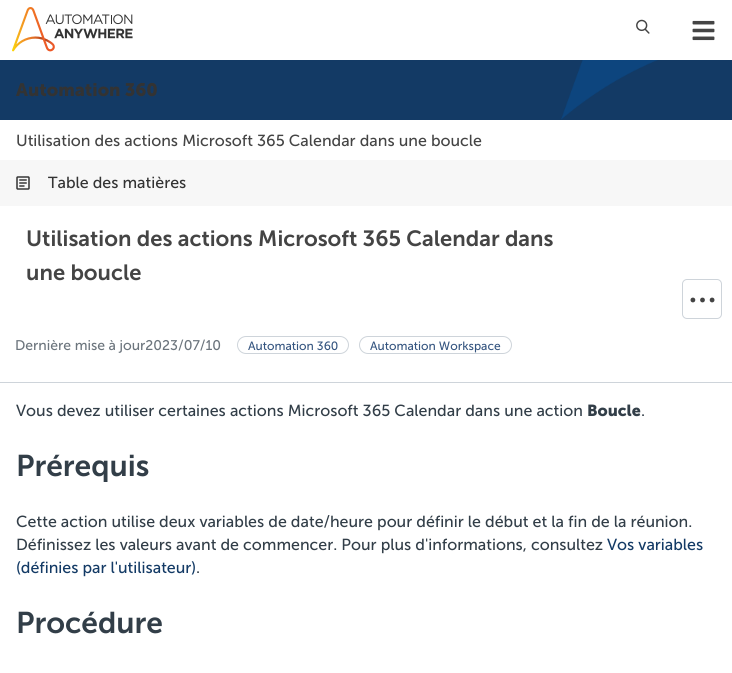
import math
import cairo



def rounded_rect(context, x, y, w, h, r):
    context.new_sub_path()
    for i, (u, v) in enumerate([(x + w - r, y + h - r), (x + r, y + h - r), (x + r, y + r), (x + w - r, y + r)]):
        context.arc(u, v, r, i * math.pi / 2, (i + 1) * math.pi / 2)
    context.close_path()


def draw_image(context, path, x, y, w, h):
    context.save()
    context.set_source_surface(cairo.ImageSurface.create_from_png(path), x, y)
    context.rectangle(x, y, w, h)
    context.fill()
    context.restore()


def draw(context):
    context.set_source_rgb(1, 1, 1)
    context.paint()
    draw_image(context, "images/1.png", 12, 7, 121, 45)
    draw_image(context, "images/2.png", 636, 19, 14, 15)
    draw_image(context, "images/3.png", 692, 20, 23, 21)
    draw_image(context, "images/4.png", 0, 60, 732, 60)
    context.set_source_rgb(247 / 255, 247 / 255, 247 / 255)
    context.rectangle(0, 160, 732, 46)
    context.fill()
    draw_image(context, "images/5.png", 16, 176, 14, 14)
    context.set_source_rgb(206 / 255, 212 / 255, 218 / 255)
    context.rectangle(0, 382, 732, 1)
    context.fill()
    rounded_rect(context, 682.5, 279.5, 39, 39, 4.5)
    context.set_line_width(1)
    context.stroke()
    context.set_source_rgb(68 / 255, 68 / 255, 68 / 255)
    context.arc(692.9, 300, 2.4, 0, 2 * math.pi)
    context.fill()
    context.arc(702.5, 300, 2.4, 0, 2 * math.pi)
    context.fill()
    context.arc(712.1, 300, 2.4, 0, 2 * math.pi)
    context.fill()
    rounded_rect(context, 237.5, 336.5, 111, 17, 8.5)
    context.set_source_rgb(206 / 255, 212 / 255, 218 / 255)
    context.stroke()
    rounded_rect(context, 359.5, 336.5, 152, 17, 8.5)
    context.stroke()
    context.select_font_face("Museo Sans", cairo.FontSlant.NORMAL, cairo.FontWeight.BOLD)
    context.set_font_size(18)
    context.set_source_rgb(51 / 255, 51 / 255, 51 / 255)
    context.move_to(16, 96)
    context.show_text("Automation 360")
    context.select_font_face("Museo Sans")
    context.set_font_size(16)
    context.set_source_rgb(68 / 255, 68 / 255, 68 / 255)
    context.move_to(16, 146)
    context.show_text("Utilisation des actions Microsoft 365 Calendar dans une boucle")
    context.set_source_rgb(51 / 255, 51 / 255, 51 / 255)
    context.move_to(48, 188)
    context.show_text("Table des matières")
    context.select_font_face("Museo Sans SemiBold")
    context.set_font_size(22)
    context.set_source_rgb(68 / 255, 68 / 255, 68 / 255)
    context.move_to(26, 246)
    context.show_text("Utilisation des actions Microsoft 365 Calendar dans")
    context.move_to(26, 280)
    context.show_text("une boucle")
    context.select_font_face("Museo Sans")
    context.set_font_size(14)
    context.set_source_rgb(108 / 255, 117 / 255, 125 / 255)
    context.move_to(15, 350)
    context.show_text("Dernière mise à jour2023/07/10")
    context.set_font_size(12)
    context.set_source_rgb(53 / 255, 85 / 255, 128 / 255)
    context.move_to(248, 350)
    context.show_text("Automation 360")
    context.move_to(370, 350)
    context.show_text("Automation Workspace")
    context.set_font_size(16)
    context.set_source_rgb(50 / 255, 62 / 255, 72 / 255)
    context.move_to(16, 416)
    context.show_text("Vous devez utiliser certaines actions Microsoft 365 Calendar dans une action")
    context.select_font_face("Museo Sans", cairo.FontSlant.NORMAL, cairo.FontWeight.BOLD)
    context.move_to(587, 416)
    context.show_text("Boucle")
    context.select_font_face("Museo Sans")
    context.move_to(641, 416)
    context.show_text(".")
    context.select_font_face("Museo Sans SemiBold")
    context.set_font_size(30)
    context.move_to(16, 476)
    context.show_text("Prérequis")
    context.select_font_face("Museo Sans")
    context.set_font_size(16)
    context.move_to(16, 527)
    context.show_text("Cette action utilise deux variables de date/heure pour définir le début et la fin de la réunion.")
    context.move_to(16, 550)
    context.show_text("Définissez les valeurs avant de commencer. Pour plus d'informations, consultez")
    context.set_source_rgb(19 / 255, 58 / 255, 101 / 255)
    context.move_to(607, 550)
    context.show_text("Vos variables")
    context.move_to(16, 573)
    context.show_text("(définies par l'utilisateur)")
    context.set_source_rgb(50 / 255, 62 / 255, 72 / 255)
    context.move_to(196, 573)
    context.show_text(".")
    context.select_font_face("Museo Sans SemiBold")
    context.set_font_size(30)
    context.move_to(16, 633)
    context.show_text("Procédure")


surface = cairo.ImageSurface(cairo.Format.RGB24, 732, 673)
context = cairo.Context(surface)
options = cairo.FontOptions()
options.set_hint_metrics(cairo.HintMetrics.OFF)
options.set_hint_style(cairo.HintStyle.NONE)
context.set_font_options(options)
context.set_miter_limit(4)
draw(context)
surface.write_to_png("out.png")
